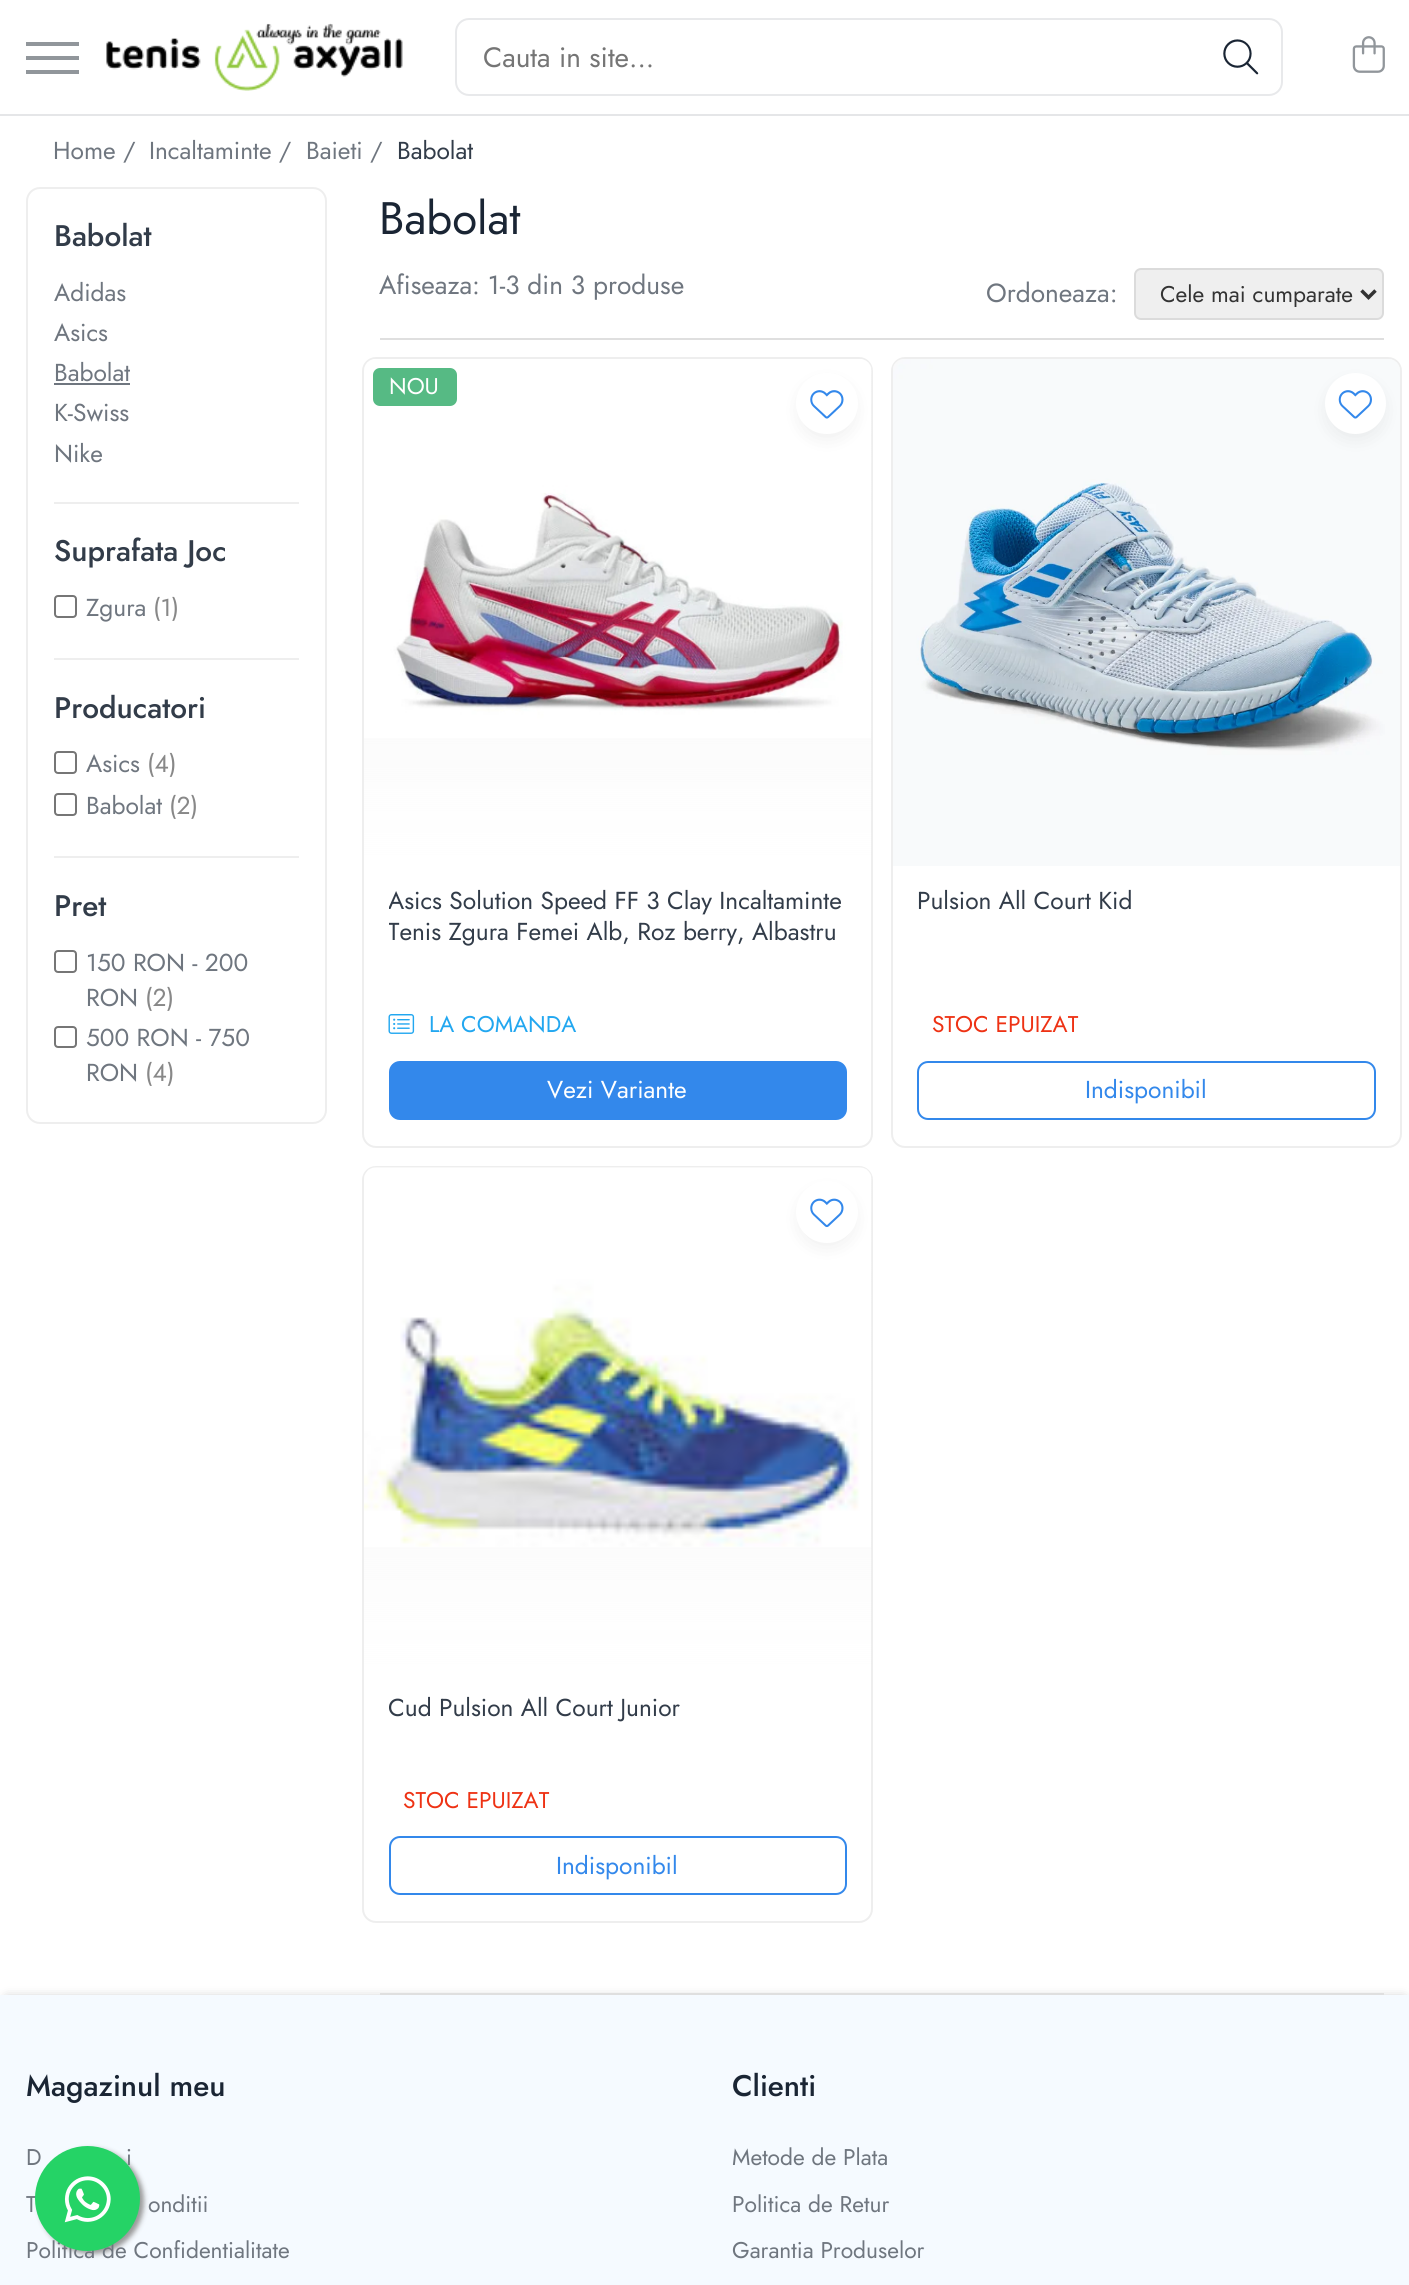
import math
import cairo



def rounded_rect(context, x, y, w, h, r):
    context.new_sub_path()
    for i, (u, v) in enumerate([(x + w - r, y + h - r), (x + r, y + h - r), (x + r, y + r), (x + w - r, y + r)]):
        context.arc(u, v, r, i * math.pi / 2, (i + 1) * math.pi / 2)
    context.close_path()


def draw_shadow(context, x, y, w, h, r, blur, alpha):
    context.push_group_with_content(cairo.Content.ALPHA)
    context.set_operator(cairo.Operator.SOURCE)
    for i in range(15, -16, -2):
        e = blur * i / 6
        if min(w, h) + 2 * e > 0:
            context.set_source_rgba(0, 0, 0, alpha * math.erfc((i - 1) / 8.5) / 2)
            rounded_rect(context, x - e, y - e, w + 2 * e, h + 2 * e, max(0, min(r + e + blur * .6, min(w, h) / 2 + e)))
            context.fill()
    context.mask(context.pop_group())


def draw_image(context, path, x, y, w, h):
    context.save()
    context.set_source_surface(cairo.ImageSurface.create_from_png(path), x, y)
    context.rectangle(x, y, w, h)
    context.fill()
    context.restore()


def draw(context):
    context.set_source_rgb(1, 1, 1)
    context.paint()
    context.set_source_rgb(229 / 255, 230 / 255, 232 / 255)
    context.rectangle(0, 114, 1409, 2)
    context.fill()
    context.set_source_rgb(145 / 255, 150 / 255, 155 / 255)
    context.rectangle(26, 56, 53, 4)
    context.fill()
    context.rectangle(26, 42, 53, 4)
    context.fill()
    context.rectangle(26, 70, 53, 4)
    context.fill()
    draw_image(context, "images/1.png", 106, 23, 297, 68)
    rounded_rect(context, 456, 19, 826, 76, 13)
    context.set_source_rgb(232 / 255, 233 / 255, 235 / 255)
    context.stroke()
    draw_image(context, "images/2.png", 1223, 39, 36, 36)
    draw_image(context, "images/3.png", 1352, 36, 33, 37)
    rounded_rect(context, 27, 188, 299, 935, 13)
    context.set_source_rgb(238 / 255, 238 / 255, 238 / 255)
    context.stroke()
    context.rectangle(54, 502, 245, 2)
    context.fill()
    context.set_source_rgb(111 / 255, 118 / 255, 127 / 255)
    context.rectangle(54, 383, 76, 2)
    context.fill()
    context.set_source_rgb(238 / 255, 238 / 255, 238 / 255)
    context.rectangle(54, 658, 245, 2)
    context.fill()
    rounded_rect(context, 55, 596, 21, 21, 3)
    context.set_source_rgb(118 / 255, 118 / 255, 118 / 255)
    context.stroke()
    context.set_source_rgb(238 / 255, 238 / 255, 238 / 255)
    context.rectangle(54, 856, 245, 2)
    context.fill()
    rounded_rect(context, 55, 752, 21, 21, 3)
    context.set_source_rgb(118 / 255, 118 / 255, 118 / 255)
    context.stroke()
    rounded_rect(context, 55, 794, 21, 21, 3)
    context.stroke()
    rounded_rect(context, 55, 951, 21, 21, 3)
    context.stroke()
    rounded_rect(context, 55, 1027, 21, 20, 3)
    context.stroke()
    context.set_source_rgb(223 / 255, 223 / 255, 223 / 255)
    context.rectangle(380, 338, 1004, 2)
    context.fill()
    context.set_source_rgb(239 / 255, 239 / 255, 239 / 255)
    rounded_rect(context, 1135, 269, 248, 50, 6)
    context.fill_preserve()
    context.set_source_rgb(219 / 255, 219 / 255, 219 / 255)
    context.stroke()
    context.new_path()
    context.move_to(1361.5, 290.5)
    context.line_to(1368.5, 297.5)
    context.line_to(1375.5, 290.5)
    context.set_source_rgb(51 / 255, 51 / 255, 51 / 255)
    context.set_line_width(3.5)
    context.stroke()
    context.set_source_rgb(0, 0, 0)
    draw_shadow(context, 7, 1999, 1397, 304, 0, 6, 0.3)
    context.set_source_rgb(223 / 255, 223 / 255, 223 / 255)
    context.rectangle(380, 1993, 1004, 2)
    context.fill()
    rounded_rect(context, 363, 358, 509, 789, 13)
    context.set_source_rgb(238 / 255, 238 / 255, 238 / 255)
    context.set_line_width(2)
    context.stroke()
    gradient = cairo.LinearGradient(618, 359, 618, 866)
    gradient.add_color_stop_rgba(0, 242 / 255, 242 / 255, 242 / 255, 1)
    gradient.add_color_stop_rgba(1, 242 / 255, 242 / 255, 242 / 255, 0)
    context.set_source(gradient)
    context.new_path()
    context.move_to(376, 359)
    context.line_to(860, 359)
    context.curve_to(866.5, 359, 872, 364.5, 872, 371)
    context.line_to(872, 866)
    context.line_to(364, 866)
    context.line_to(364, 371)
    context.curve_to(364, 364.5, 369.5, 359, 376, 359)
    context.close_path()
    context.fill()
    draw_image(context, "images/4.png", 364, 359, 507, 379)
    context.set_source_rgb(86 / 255, 186 / 255, 132 / 255)
    rounded_rect(context, 373, 368, 84, 38, 7)
    context.fill()
    draw_image(context, "images/5.png", 388, 1014, 27, 20)
    context.set_source_rgb(0, 0, 0)
    draw_shadow(context, 802, 385, 50, 51, 25, 10.5, 0.08)
    context.set_source_rgb(1, 1, 1)
    rounded_rect(context, 796, 373, 62, 61, 30.5)
    context.fill()
    draw_image(context, "images/6.png", 810, 390, 34, 29)
    context.set_source_rgb(51 / 255, 136 / 255, 235 / 255)
    rounded_rect(context, 389, 1061, 458, 59, 11)
    context.fill()
    rounded_rect(context, 892, 358, 509, 789, 13)
    context.set_source_rgb(238 / 255, 238 / 255, 238 / 255)
    context.stroke()
    draw_image(context, "images/7.png", 893, 359, 507, 507)
    context.set_source_rgb(0, 0, 0)
    draw_shadow(context, 1330, 385, 51, 51, 25.5, 10.5, 0.08)
    context.set_source_rgb(1, 1, 1)
    context.arc(1355.5, 403.5, 30.5, 0, 2 * math.pi)
    context.fill()
    draw_image(context, "images/8.png", 1338, 390, 34, 29)
    rounded_rect(context, 918, 1062, 457, 57, 10)
    context.set_source_rgb(51 / 255, 136 / 255, 235 / 255)
    context.stroke()
    rounded_rect(context, 363, 1167, 509, 755, 13)
    context.set_source_rgb(238 / 255, 238 / 255, 238 / 255)
    context.stroke()
    gradient = cairo.LinearGradient(618, 1167, 618, 1675)
    gradient.add_color_stop_rgba(0, 242 / 255, 242 / 255, 242 / 255, 1)
    gradient.add_color_stop_rgba(1, 242 / 255, 242 / 255, 242 / 255, 0)
    context.set_source(gradient)
    context.new_path()
    context.move_to(376, 1167)
    context.line_to(860, 1167)
    context.curve_to(866.5, 1167, 872, 1172.5, 872, 1179)
    context.line_to(872, 1675)
    context.line_to(364, 1675)
    context.line_to(364, 1179)
    context.curve_to(364, 1172.5, 369.5, 1167, 376, 1167)
    context.close_path()
    context.fill()
    draw_image(context, "images/9.png", 364, 1167, 507, 380)
    context.set_source_rgb(0, 0, 0)
    draw_shadow(context, 802, 1194, 50, 50, 25, 10.5, 0.08)
    context.set_source_rgb(1, 1, 1)
    context.arc(827, 1212, 31, 0, 2 * math.pi)
    context.fill()
    draw_image(context, "images/10.png", 810, 1198, 34, 30)
    rounded_rect(context, 390, 1837, 456, 57, 10)
    context.set_source_rgb(51 / 255, 136 / 255, 235 / 255)
    context.stroke()
    context.set_source_rgb(245 / 255, 250 / 255, 1)
    context.rectangle(0, 1995, 1409, 290)
    context.fill()
    context.set_source_rgb(153 / 255, 153 / 255, 153 / 255)
    draw_shadow(context, 39, 2149, 105, 105, 52.5, 2.5, 1)
    context.select_font_face("Jost")
    context.set_font_size(28)
    context.set_source_rgb(117 / 255, 117 / 255, 117 / 255)
    context.move_to(483, 67)
    context.show_text("Cauta in site...")
    context.set_font_size(24.5)
    context.set_source_rgb(111 / 255, 118 / 255, 127 / 255)
    context.move_to(53, 159)
    context.show_text("Home /")
    context.move_to(149, 159)
    context.show_text("Incaltaminte /")
    context.move_to(306, 159)
    context.show_text("Baieti /")
    context.set_source_rgb(50 / 255, 60 / 255, 73 / 255)
    context.move_to(397, 159)
    context.show_text("Babolat")
    context.set_font_size(45.5)
    context.set_source_rgb(26 / 255, 37 / 255, 52 / 255)
    context.move_to(379, 234)
    context.show_text("Babolat")
    context.select_font_face("Jost Medium")
    context.set_font_size(29.75)
    context.set_source_rgb(50 / 255, 60 / 255, 73 / 255)
    context.move_to(54, 246)
    context.show_text("Babolat")
    context.select_font_face("Jost")
    context.set_font_size(24.5)
    context.set_source_rgb(111 / 255, 118 / 255, 127 / 255)
    context.move_to(54, 301)
    context.show_text("Adidas")
    context.move_to(54, 341)
    context.show_text("Asics")
    context.move_to(54, 381)
    context.show_text("Babolat")
    context.move_to(54, 421)
    context.show_text("K-Swiss")
    context.move_to(54, 462)
    context.show_text("Nike")
    context.select_font_face("Jost Medium")
    context.set_font_size(29.75)
    context.set_source_rgb(50 / 255, 60 / 255, 73 / 255)
    context.move_to(54, 561)
    context.show_text("Suprafata Joc")
    context.select_font_face("Jost")
    context.set_font_size(24.5)
    context.set_source_rgb(111 / 255, 118 / 255, 127 / 255)
    context.move_to(86, 616)
    context.show_text("Zgura")
    context.set_source_rgb(136 / 255, 136 / 255, 136 / 255)
    context.move_to(153, 616)
    context.show_text("(1)")
    context.select_font_face("Jost Medium")
    context.set_font_size(29.75)
    context.set_source_rgb(50 / 255, 60 / 255, 73 / 255)
    context.move_to(54, 718)
    context.show_text("Producatori")
    context.select_font_face("Jost")
    context.set_font_size(24.5)
    context.set_source_rgb(111 / 255, 118 / 255, 127 / 255)
    context.move_to(86, 772)
    context.show_text("Asics")
    context.set_source_rgb(136 / 255, 136 / 255, 136 / 255)
    context.move_to(147, 772)
    context.show_text("(4)")
    context.set_source_rgb(111 / 255, 118 / 255, 127 / 255)
    context.move_to(86, 814)
    context.show_text("Babolat")
    context.set_source_rgb(136 / 255, 136 / 255, 136 / 255)
    context.move_to(169, 814)
    context.show_text("(2)")
    context.select_font_face("Jost Medium")
    context.set_font_size(29.75)
    context.set_source_rgb(50 / 255, 60 / 255, 73 / 255)
    context.move_to(54, 916)
    context.show_text("Pret")
    context.select_font_face("Jost")
    context.set_font_size(24.5)
    context.set_source_rgb(111 / 255, 118 / 255, 127 / 255)
    context.move_to(86, 971)
    context.show_text("150 RON - 200")
    context.move_to(86, 1006)
    context.show_text("RON")
    context.set_source_rgb(136 / 255, 136 / 255, 136 / 255)
    context.move_to(145, 1006)
    context.show_text("(2)")
    context.set_source_rgb(111 / 255, 118 / 255, 127 / 255)
    context.move_to(86, 1046)
    context.show_text("500 RON - 750")
    context.move_to(86, 1081)
    context.show_text("RON")
    context.set_source_rgb(136 / 255, 136 / 255, 136 / 255)
    context.move_to(145, 1081)
    context.show_text("(4)")
    context.set_font_size(26.25)
    context.set_source_rgb(111 / 255, 118 / 255, 127 / 255)
    context.move_to(379, 294)
    context.show_text("Afiseaza: 1-3 din 3 produse")
    context.move_to(986, 302)
    context.show_text("Ordoneaza:")
    context.set_font_size(22.75)
    context.set_source_rgb(51 / 255, 51 / 255, 51 / 255)
    context.move_to(1160, 302)
    context.show_text("Cele mai cumparate")
    context.set_source_rgb(1, 1, 1)
    context.move_to(389, 394)
    context.show_text("NOU")
    context.save()
    context.rectangle(389, 884, 458, 65)
    context.clip()
    context.set_font_size(24.5)
    context.set_source_rgb(50 / 255, 60 / 255, 73 / 255)
    context.move_to(388, 909)
    context.show_text("Asics Solution Speed FF 3 Clay Incaltaminte")
    context.move_to(388, 940)
    context.show_text("Tenis Zgura Femei Alb, Roz berry, Albastru")
    context.restore()
    context.set_source_rgb(34 / 255, 167 / 255, 240 / 255)
    context.move_to(429, 1032)
    context.show_text("LA COMANDA")
    context.set_font_size(24.5)
    context.set_source_rgb(1, 1, 1)
    context.move_to(547, 1098)
    context.show_text("Vezi Variante")
    context.set_source_rgb(50 / 255, 60 / 255, 73 / 255)
    context.move_to(917, 909)
    context.show_text("Pulsion All Court Kid")
    context.set_font_size(22.75)
    context.set_source_rgb(238 / 255, 50 / 255, 20 / 255)
    context.move_to(932, 1032)
    context.show_text("STOC EPUIZAT")
    context.set_font_size(24.5)
    context.set_source_rgb(51 / 255, 136 / 255, 235 / 255)
    context.move_to(1085, 1098)
    context.show_text("Indisponibil")
    context.save()
    context.rectangle(389, 1692, 458, 32)
    context.clip()
    context.set_source_rgb(50 / 255, 60 / 255, 73 / 255)
    context.move_to(388, 1716)
    context.show_text("Cud Pulsion All Court Junior")
    context.restore()
    context.set_font_size(22.75)
    context.set_source_rgb(238 / 255, 50 / 255, 20 / 255)
    context.move_to(403, 1808)
    context.show_text("STOC EPUIZAT")
    context.set_font_size(24.5)
    context.set_source_rgb(51 / 255, 136 / 255, 235 / 255)
    context.move_to(556, 1874)
    context.show_text("Indisponibil")
    context.select_font_face("Jost Medium")
    context.set_font_size(29.75)
    context.set_source_rgb(26 / 255, 37 / 255, 52 / 255)
    context.move_to(26, 2096)
    context.show_text("Magazinul meu")
    context.select_font_face("Jost")
    context.set_font_size(22.75)
    context.set_source_rgb(111 / 255, 118 / 255, 127 / 255)
    context.move_to(26, 2165)
    context.show_text("D")
    context.move_to(126, 2165)
    context.show_text("i")
    context.move_to(26, 2212)
    context.show_text("T")
    context.move_to(148, 2212)
    context.show_text("onditii")
    context.move_to(26, 2258)
    context.show_text("Politica de Confidentialitate")
    context.select_font_face("Jost Medium")
    context.set_font_size(29.75)
    context.set_source_rgb(26 / 255, 37 / 255, 52 / 255)
    context.move_to(732, 2096)
    context.show_text("Clienti")
    context.select_font_face("Jost")
    context.set_font_size(22.75)
    context.set_source_rgb(111 / 255, 118 / 255, 127 / 255)
    context.move_to(732, 2165)
    context.show_text("Metode de Plata")
    context.move_to(732, 2212)
    context.show_text("Politica de Retur")
    context.move_to(732, 2258)
    context.show_text("Garantia Produselor")
    context.set_source_rgb(37 / 255, 211 / 255, 102 / 255)
    context.new_path()
    context.arc(87.5, 2198.5, 52.5, 0, 2 * math.pi)
    context.fill()
    draw_image(context, "images/11.png", 64, 2176, 47, 47)


surface = cairo.ImageSurface(cairo.Format.RGB24, 1409, 2285)
context = cairo.Context(surface)
options = cairo.FontOptions()
options.set_hint_metrics(cairo.HintMetrics.OFF)
options.set_hint_style(cairo.HintStyle.NONE)
context.set_font_options(options)
context.set_miter_limit(4)
draw(context)
surface.write_to_png("out.png")
